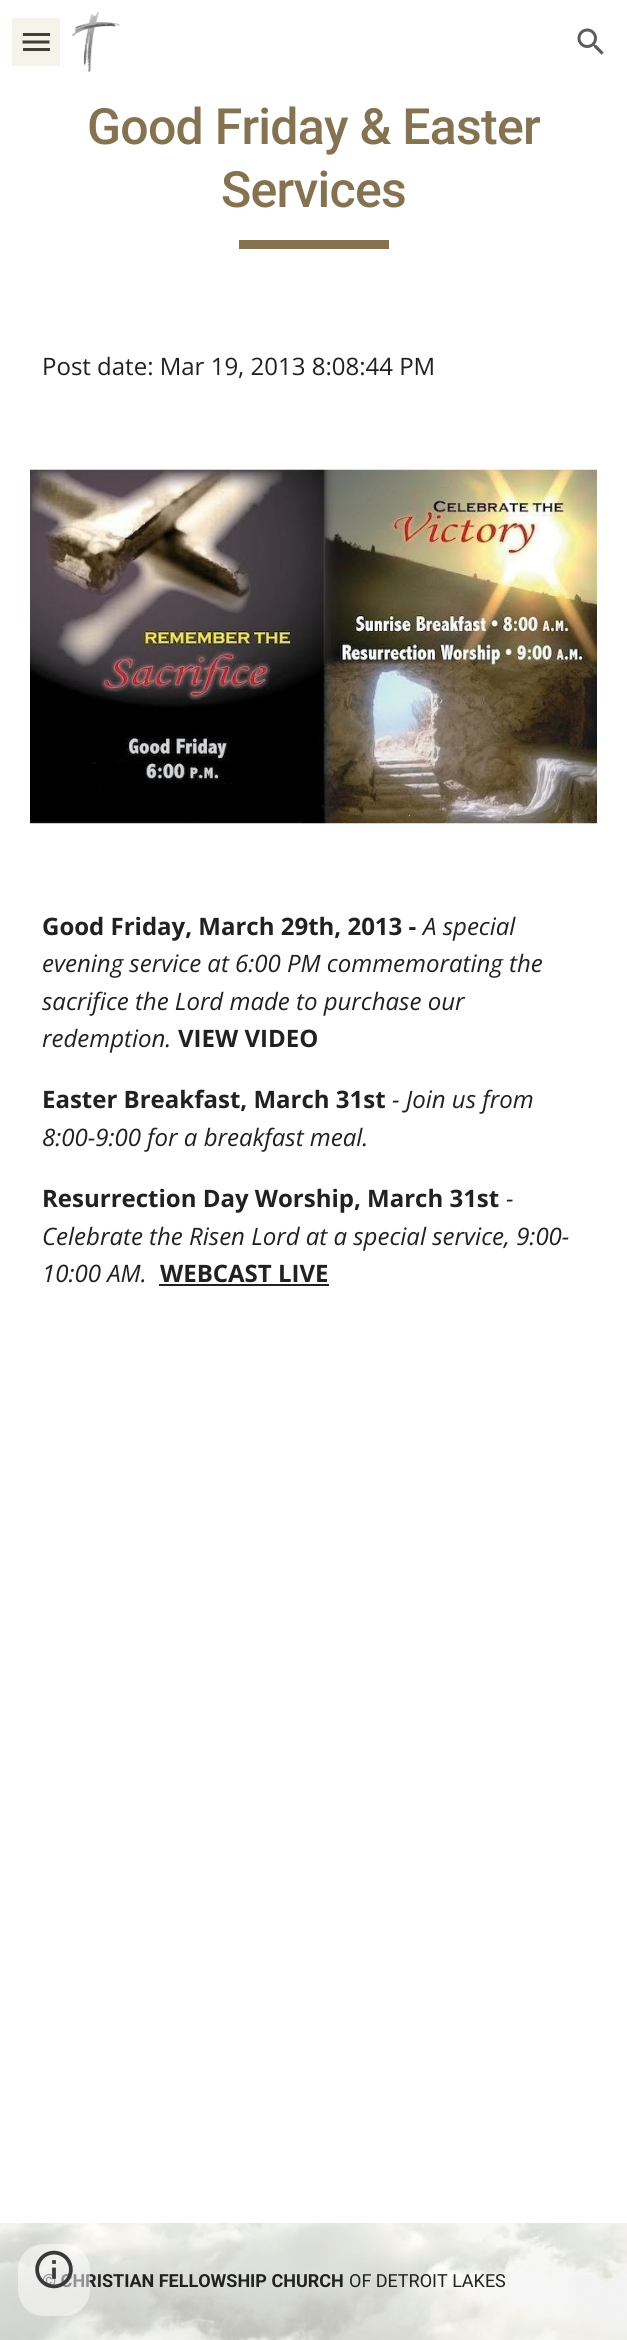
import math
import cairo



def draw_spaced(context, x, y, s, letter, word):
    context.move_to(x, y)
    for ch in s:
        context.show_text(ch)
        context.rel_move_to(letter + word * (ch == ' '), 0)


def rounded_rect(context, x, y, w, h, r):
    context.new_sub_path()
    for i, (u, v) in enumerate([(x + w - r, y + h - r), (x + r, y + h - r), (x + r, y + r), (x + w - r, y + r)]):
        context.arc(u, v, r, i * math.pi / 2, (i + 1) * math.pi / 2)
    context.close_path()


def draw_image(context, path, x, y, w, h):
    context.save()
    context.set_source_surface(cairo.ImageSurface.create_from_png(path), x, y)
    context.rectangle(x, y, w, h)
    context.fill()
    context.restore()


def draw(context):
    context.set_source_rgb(1, 1, 1)
    context.paint()
    context.set_source_rgb(246 / 255, 243 / 255, 234 / 255)
    context.rectangle(12, 18, 48, 48)
    context.fill()
    context.set_source_rgb(67 / 255, 63 / 255, 55 / 255)
    context.rectangle(23, 33, 27, 3)
    context.fill()
    context.new_path()
    context.move_to(22.5, 42)
    context.line_to(49.5, 42)
    context.set_line_width(3)
    context.stroke()
    context.rectangle(23, 48, 27, 3)
    context.fill()
    draw_image(context, "images/1.png", 72, 12, 48, 60)
    draw_image(context, "images/2.png", 577, 28, 27, 27)
    context.set_source_rgb(133 / 255, 114 / 255, 81 / 255)
    context.rectangle(239, 240, 150, 9)
    context.fill()
    draw_image(context, "images/3.png", 30, 469, 567, 355)
    context.set_source_rgb(33 / 255, 33 / 255, 33 / 255)
    context.rectangle(159, 1284, 170, 2)
    context.fill()
    draw_image(context, "images/5.png", 0, 2223, 627, 117)
    context.select_font_face("Roboto Medium")
    context.set_font_size(50)
    context.set_source_rgb(133 / 255, 114 / 255, 81 / 255)
    draw_spaced(context, 87, 144, "Good Friday & Easter", -0.75, 0)
    draw_spaced(context, 221, 207, "Services", -0.75, 0)
    context.select_font_face("Open Sans")
    context.set_font_size(24)
    context.set_source_rgb(33 / 255, 33 / 255, 33 / 255)
    context.move_to(42, 375)
    context.show_text("Post date: Mar 19, 2013 8:08:44 PM")
    context.select_font_face("Open Sans", cairo.FontSlant.NORMAL, cairo.FontWeight.BOLD)
    context.move_to(42, 935)
    context.show_text("Good Friday, March 29th, 2013 -")
    context.select_font_face("Open Sans", cairo.FontSlant.ITALIC)
    context.move_to(423, 935)
    context.show_text("A special")
    context.move_to(42, 972)
    context.show_text("evening service at 6:00 PM commemorating the")
    context.move_to(42, 1010)
    context.show_text("sacrifice the Lord made to purchase our")
    context.move_to(42, 1047)
    context.show_text("redemption.")
    context.select_font_face("Open Sans", cairo.FontSlant.NORMAL, cairo.FontWeight.BOLD)
    context.move_to(178, 1047)
    context.show_text("VIEW VIDEO")
    context.move_to(42, 1108)
    context.show_text("Easter Breakfast, March 31st")
    context.select_font_face("Open Sans", cairo.FontSlant.ITALIC)
    context.move_to(392, 1108)
    context.show_text("- Join us from")
    context.move_to(42, 1146)
    context.show_text("8:00-9:00 for a breakfast meal.")
    context.select_font_face("Open Sans", cairo.FontSlant.NORMAL, cairo.FontWeight.BOLD)
    context.move_to(42, 1207)
    context.show_text("Resurrection Day Worship, March 31st")
    context.select_font_face("Open Sans", cairo.FontSlant.ITALIC)
    context.move_to(506, 1207)
    context.show_text("-")
    context.move_to(42, 1245)
    context.show_text("Celebrate the Risen Lord at a special service, 9:00-")
    context.move_to(42, 1282)
    context.show_text("10:00 AM.")
    context.select_font_face("Open Sans", cairo.FontSlant.NORMAL, cairo.FontWeight.BOLD)
    context.move_to(160, 1282)
    context.show_text("WEBCAST LIVE")
    context.select_font_face("Roboto", cairo.FontSlant.NORMAL, cairo.FontWeight.BOLD)
    context.set_font_size(18)
    context.move_to(42, 2287)
    context.show_text("© CHRISTIAN FELLOWSHIP CHURCH")
    context.set_source_rgba(1, 1, 1, 0.5)
    rounded_rect(context, 18, 2244, 72, 72, 26)
    context.fill()
    draw_image(context, "images/4.png", 35, 2250, 38, 39)
    context.select_font_face("Roboto")
    context.set_source_rgb(33 / 255, 33 / 255, 33 / 255)
    context.move_to(349, 2287)
    context.show_text("OF DETROIT LAKES")


surface = cairo.ImageSurface(cairo.Format.RGB24, 627, 2340)
context = cairo.Context(surface)
options = cairo.FontOptions()
options.set_hint_metrics(cairo.HintMetrics.OFF)
options.set_hint_style(cairo.HintStyle.NONE)
context.set_font_options(options)
context.set_miter_limit(4)
draw(context)
surface.write_to_png("out.png")
